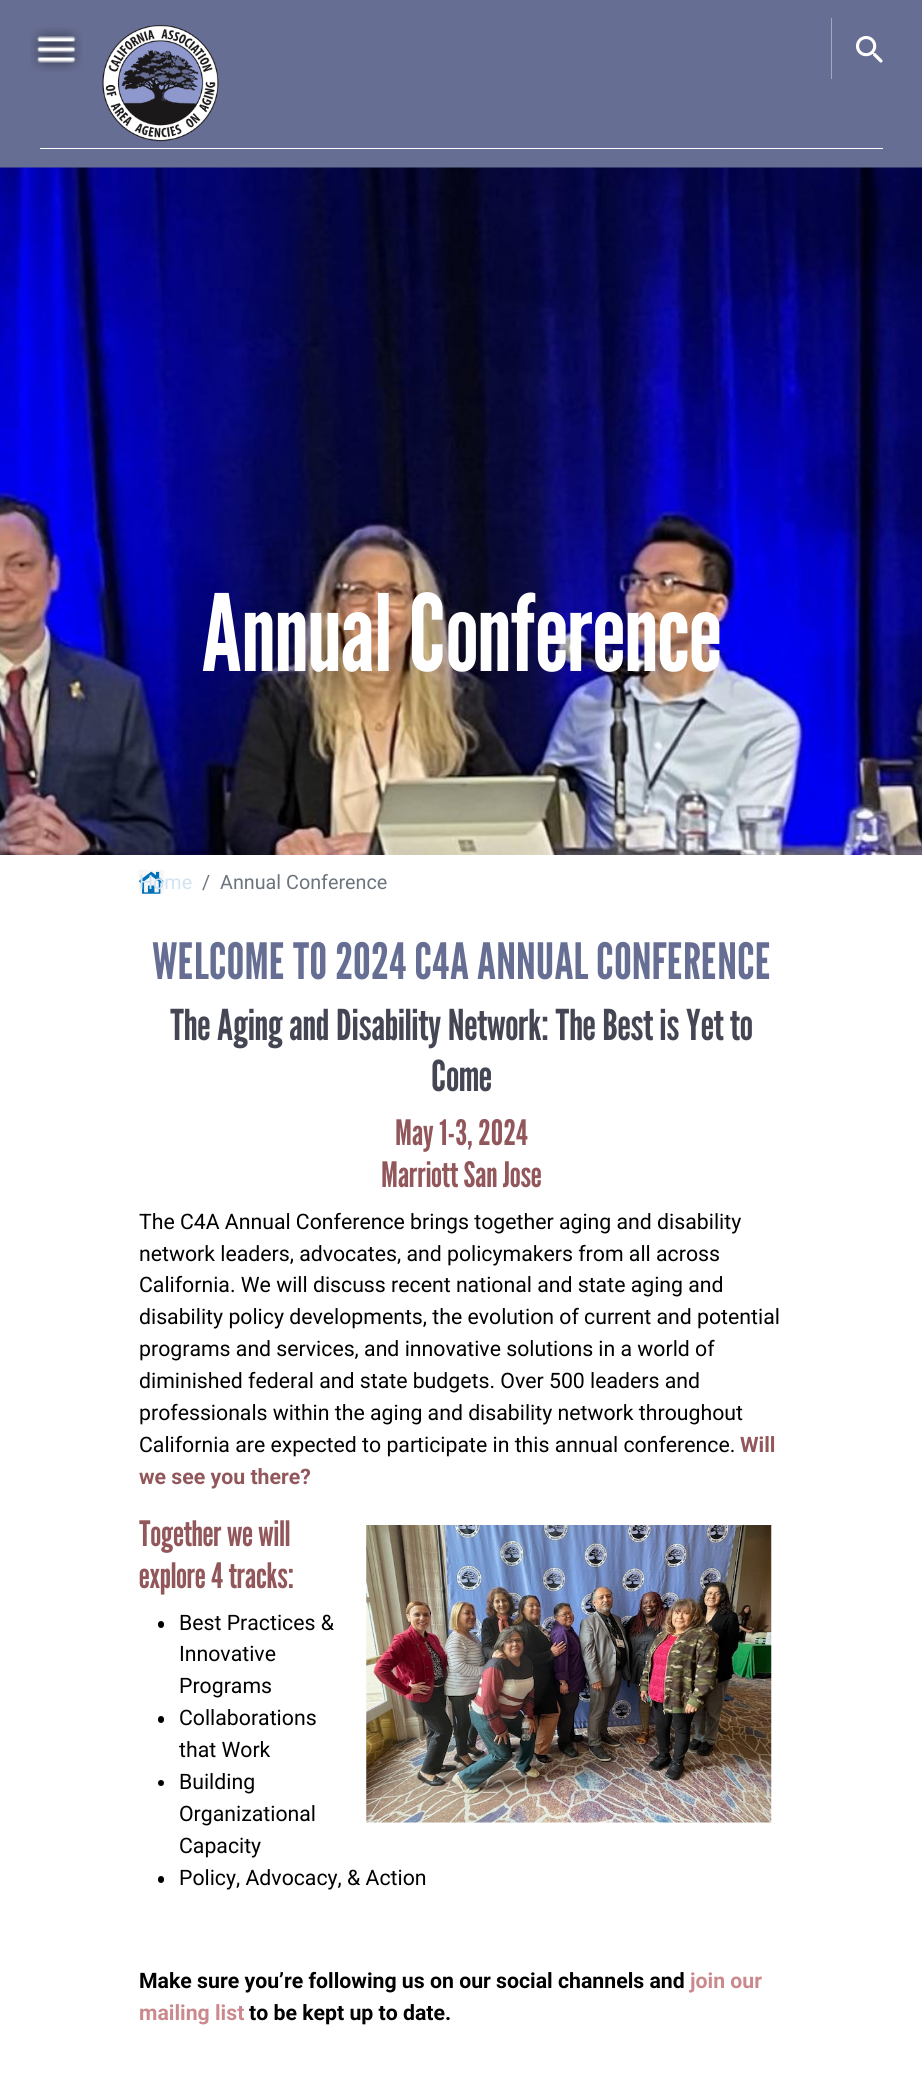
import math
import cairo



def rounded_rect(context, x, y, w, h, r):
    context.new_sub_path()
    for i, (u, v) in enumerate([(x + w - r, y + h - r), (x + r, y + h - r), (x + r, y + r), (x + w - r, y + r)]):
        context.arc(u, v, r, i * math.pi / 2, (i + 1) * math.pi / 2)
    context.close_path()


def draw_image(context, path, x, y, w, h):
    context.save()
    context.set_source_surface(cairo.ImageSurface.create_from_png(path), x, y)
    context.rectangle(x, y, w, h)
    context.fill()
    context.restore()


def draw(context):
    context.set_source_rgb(1, 1, 1)
    context.paint()
    context.set_source_rgb(103 / 255, 110 / 255, 147 / 255)
    context.rectangle(0, 0, 922, 168)
    context.fill()
    draw_image(context, "images/1.png", 30, 27, 53, 45)
    draw_image(context, "images/2.png", 102, 25, 117, 117)
    context.set_source_rgb(164 / 255, 168 / 255, 190 / 255)
    context.rectangle(831, 18, 1, 61)
    context.fill()
    draw_image(context, "images/3.png", 856, 36, 27, 27)
    context.set_source_rgb(1, 1, 1)
    context.rectangle(40, 148, 843, 1)
    context.fill()
    draw_image(context, "images/4.png", 0, 167, 922, 688)
    draw_image(context, "images/5.png", 138, 870, 26, 24)
    draw_image(context, "images/6.png", 366, 1525, 406, 298)
    context.set_source_rgb(0, 0, 0)
    rounded_rect(context, 158, 1621, 6, 7, 3)
    context.fill()
    rounded_rect(context, 158, 1716, 6, 7, 3)
    context.fill()
    context.arc(161, 1783, 3, 0, 2 * math.pi)
    context.fill()
    rounded_rect(context, 158, 1876, 6, 7, 3)
    context.fill()
    context.select_font_face("League Gothic")
    context.set_font_size(106.25)
    context.set_source_rgb(1, 1, 1)
    context.move_to(201, 671)
    context.show_text("Annual Conference")
    context.select_font_face("Roboto")
    context.set_font_size(19.75)
    context.set_source_rgb(209 / 255, 228 / 255, 240 / 255)
    context.move_to(139, 889)
    context.show_text("Home")
    context.set_source_rgb(108 / 255, 117 / 255, 125 / 255)
    context.move_to(202, 889)
    context.show_text("/")
    context.move_to(220, 889)
    context.show_text("Annual Conference")
    context.select_font_face("League Gothic")
    context.set_font_size(50)
    context.set_source_rgb(103 / 255, 110 / 255, 147 / 255)
    context.move_to(152, 979)
    context.show_text("WELCOME TO 2024 C4A ANNUAL CONFERENCE")
    context.set_font_size(42.5)
    context.set_source_rgb(68 / 255, 70 / 255, 84 / 255)
    context.move_to(170, 1040)
    context.show_text("The Aging and Disability Network: The Best is Yet to")
    context.move_to(431, 1091)
    context.show_text("Come")
    context.set_font_size(35)
    context.set_source_rgb(146 / 255, 87 / 255, 91 / 255)
    context.move_to(395, 1145)
    context.show_text("May 1-3, 2024")
    context.move_to(381, 1187)
    context.show_text("Marriott San Jose")
    context.select_font_face("Roboto")
    context.set_font_size(21.25)
    context.set_source_rgb(0, 0, 0)
    context.move_to(139, 1229)
    context.show_text("The C4A Annual Conference brings together aging and disability")
    context.move_to(139, 1261)
    context.show_text("network leaders, advocates, and policymakers from all across")
    context.move_to(139, 1292)
    context.show_text("California. We will discuss recent national and state aging and")
    context.move_to(139, 1324)
    context.show_text("disability policy developments, the evolution of current and potential")
    context.move_to(139, 1356)
    context.show_text("programs and services, and innovative solutions in a world of")
    context.move_to(139, 1388)
    context.show_text("diminished federal and state budgets. Over 500 leaders and")
    context.move_to(139, 1420)
    context.show_text("professionals within the aging and disability network throughout")
    context.move_to(139, 1452)
    context.show_text("California are expected to participate in this annual conference.")
    context.select_font_face("Roboto", cairo.FontSlant.NORMAL, cairo.FontWeight.BOLD)
    context.set_source_rgb(146 / 255, 87 / 255, 91 / 255)
    context.move_to(740, 1452)
    context.show_text("Will")
    context.move_to(139, 1484)
    context.show_text("we see you there?")
    context.select_font_face("League Gothic")
    context.set_font_size(35)
    context.move_to(139, 1546)
    context.show_text("Together we will")
    context.move_to(139, 1588)
    context.show_text("explore 4 tracks:")
    context.select_font_face("Roboto")
    context.set_font_size(21.25)
    context.set_source_rgb(0, 0, 0)
    context.move_to(179, 1630)
    context.show_text("Best Practices &")
    context.move_to(179, 1661)
    context.show_text("Innovative")
    context.move_to(179, 1693)
    context.show_text("Programs")
    context.move_to(179, 1725)
    context.show_text("Collaborations")
    context.move_to(179, 1757)
    context.show_text("that Work")
    context.move_to(179, 1789)
    context.show_text("Building")
    context.move_to(179, 1821)
    context.show_text("Organizational")
    context.move_to(179, 1853)
    context.show_text("Capacity")
    context.move_to(179, 1885)
    context.show_text("Policy, Advocacy, & Action")
    context.select_font_face("Roboto", cairo.FontSlant.NORMAL, cairo.FontWeight.BOLD)
    context.move_to(139, 1988)
    context.show_text("Make sure you’re following us on our social channels and")
    context.set_source_rgb(202 / 255, 138 / 255, 141 / 255)
    context.move_to(690, 1988)
    context.show_text("join our")
    context.move_to(139, 2020)
    context.show_text("mailing list")
    context.set_source_rgb(0, 0, 0)
    context.move_to(249, 2020)
    context.show_text("to be kept up to date.")


surface = cairo.ImageSurface(cairo.Format.RGB24, 922, 2091)
context = cairo.Context(surface)
options = cairo.FontOptions()
options.set_hint_metrics(cairo.HintMetrics.OFF)
options.set_hint_style(cairo.HintStyle.NONE)
context.set_font_options(options)
context.set_miter_limit(4)
draw(context)
surface.write_to_png("out.png")
